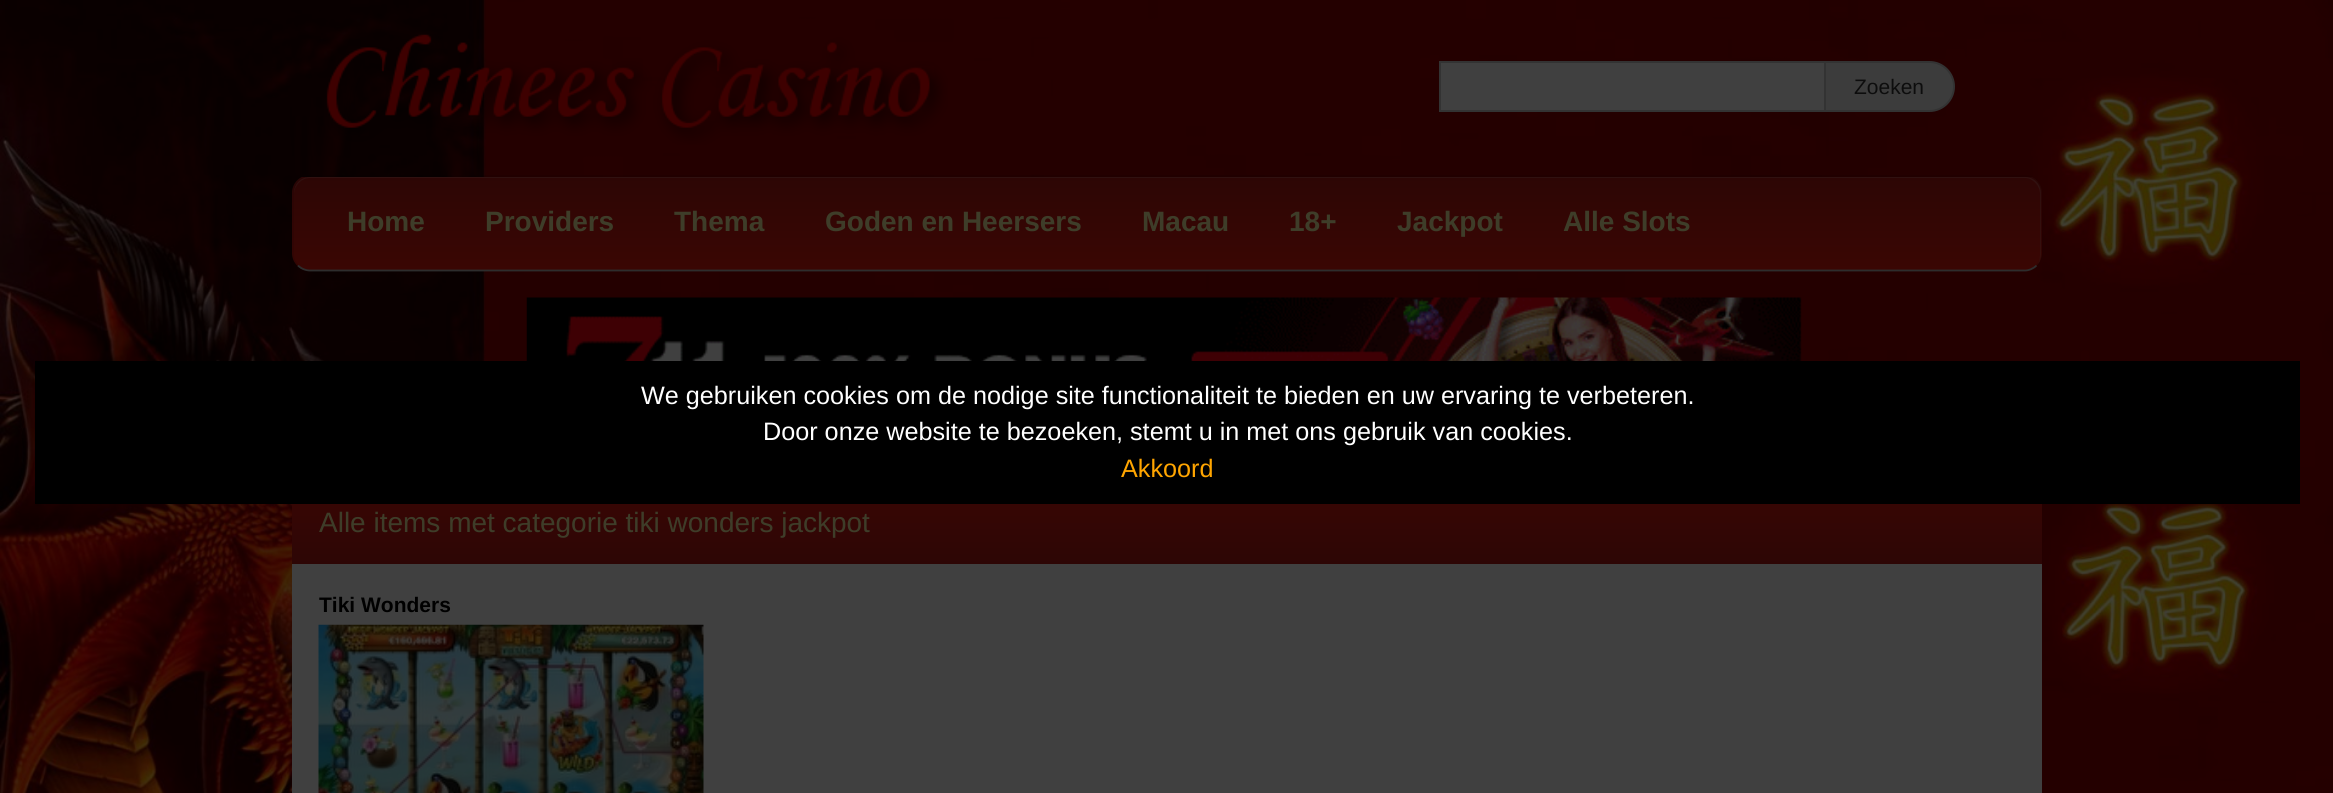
import math
import cairo



def rounded_rect(context, x, y, w, h, r):
    context.new_sub_path()
    for i, (u, v) in enumerate([(x + w - r, y + h - r), (x + r, y + h - r), (x + r, y + r), (x + w - r, y + r)]):
        context.arc(u, v, r, i * math.pi / 2, (i + 1) * math.pi / 2)
    context.close_path()


def draw_image(context, path, x, y, w, h):
    context.save()
    context.set_source_surface(cairo.ImageSurface.create_from_png(path), x, y)
    context.rectangle(x, y, w, h)
    context.fill()
    context.restore()


def draw(context):
    context.set_source_rgb(1, 1, 1)
    context.paint()
    draw_image(context, "images/1.png", 0, 0, 2333, 793)
    draw_image(context, "images/2.png", 326, 34, 622, 111)
    context.set_source_rgb(64 / 255, 64 / 255, 64 / 255)
    context.rectangle(1441, 63, 383, 47)
    context.fill()
    context.set_source_rgb(51 / 255, 51 / 255, 51 / 255)
    context.rectangle(1439, 61, 385, 2)
    context.fill()
    context.rectangle(1439, 110, 385, 2)
    context.fill()
    context.rectangle(1439, 61, 2, 51)
    context.fill()
    context.set_source_rgb(60 / 255, 60 / 255, 60 / 255)
    context.new_path()
    context.move_to(1825, 62)
    context.line_to(1929.5, 62)
    context.curve_to(1943, 62, 1954, 73, 1954, 86.5)
    context.curve_to(1954, 100, 1943, 111, 1929.5, 111)
    context.line_to(1825, 111)
    context.close_path()
    context.fill_preserve()
    context.set_source_rgb(51 / 255, 51 / 255, 51 / 255)
    context.stroke()
    context.save()
    rounded_rect(context, 292, 175, 1750, 96, 18)
    context.clip()
    gradient = cairo.LinearGradient(1167, 177, 1167, 270)
    gradient.add_color_stop_rgba(0, 45 / 255, 6 / 255, 5 / 255, 1)
    gradient.add_color_stop_rgba(1, 58 / 255, 6 / 255, 3 / 255, 1)
    context.set_source(gradient)
    context.rectangle(292, 177, 1750, 93)
    context.fill()
    context.restore()
    context.set_source_rgba(64 / 255, 64 / 255, 64 / 255, 0.2)
    context.new_path()
    context.move_to(310, 178)
    context.line_to(2025, 178)
    context.curve_to(2033, 178, 2040, 186, 2040, 194)
    context.line_to(2040, 256)
    context.curve_to(2040, 259, 2039, 261, 2038, 264)
    context.curve_to(2040, 261, 2041, 258, 2041, 254)
    context.line_to(2041, 193)
    context.curve_to(2041, 184, 2034, 177, 2025, 177)
    context.line_to(310, 177)
    context.curve_to(301, 177, 294, 184, 294, 193)
    context.line_to(294, 194)
    context.curve_to(294, 186, 301, 178, 310, 178)
    context.close_path()
    context.fill()
    context.new_path()
    context.move_to(2036.5, 265.5)
    context.curve_to(2033.5, 268.5, 2029, 270.5, 2025, 270.5)
    context.line_to(310, 270.5)
    context.curve_to(305.5, 270.5, 301, 268.5, 298, 265.5)
    context.set_source_rgb(45 / 255, 45 / 255, 45 / 255)
    context.set_line_width(1.8)
    context.stroke()
    context.new_path()
    context.move_to(298, 265.5)
    context.curve_to(295, 262.5, 293, 258, 293, 254)
    context.line_to(293, 192.5)
    context.curve_to(293, 188, 295, 184, 298, 180.5)
    context.curve_to(301, 177.5, 305.5, 176, 310, 176)
    context.line_to(2025, 176)
    context.curve_to(2029, 176, 2033.5, 177.5, 2036.5, 180.5)
    context.curve_to(2039.5, 184, 2041.5, 188, 2041.5, 192.5)
    context.line_to(2041.5, 254)
    context.curve_to(2041.5, 258, 2039.5, 262.5, 2036.5, 265.5)
    context.set_source_rgba(0, 0, 0, 0.1)
    context.stroke()
    draw_image(context, "images/3.png", 526, 297, 1276, 64)
    context.set_source_rgb(0, 0, 0)
    context.rectangle(35, 361, 2265, 143)
    context.fill()
    context.set_source_rgb(64 / 255, 64 / 255, 64 / 255)
    context.rectangle(292, 564, 1750, 229)
    context.fill()
    gradient = cairo.LinearGradient(1167, 481, 1167, 564)
    gradient.add_color_stop_rgba(0, 58 / 255, 6 / 255, 4 / 255, 1)
    gradient.add_color_stop_rgba(1, 45 / 255, 6 / 255, 5 / 255, 1)
    context.set_source(gradient)
    context.rectangle(292, 504, 1750, 60)
    context.fill()
    draw_image(context, "images/4.png", 318, 624, 386, 169)
    context.select_font_face("Liberation Sans")
    context.set_font_size(21)
    context.set_source_rgb(13 / 255, 13 / 255, 13 / 255)
    context.move_to(1854, 94)
    context.show_text("Zoeken")
    context.select_font_face("Liberation Sans", cairo.FontSlant.NORMAL, cairo.FontWeight.BOLD)
    context.set_font_size(28)
    context.set_source_rgb(62 / 255, 61 / 255, 41 / 255)
    context.move_to(347, 231)
    context.show_text("Home")
    context.move_to(485, 231)
    context.show_text("Providers")
    context.move_to(674, 231)
    context.show_text("Thema")
    context.move_to(825, 231)
    context.show_text("Goden en Heersers")
    context.move_to(1142, 231)
    context.show_text("Macau")
    context.move_to(1289, 231)
    context.show_text("18+")
    context.move_to(1397, 231)
    context.show_text("Jackpot")
    context.move_to(1563, 231)
    context.show_text("Alle Slots")
    context.select_font_face("Liberation Sans")
    context.set_font_size(25.2)
    context.set_source_rgb(1, 1, 1)
    context.move_to(641, 404)
    context.show_text("We gebruiken cookies om de nodige site functionaliteit te bieden en uw ervaring te verbeteren.")
    context.move_to(763, 440)
    context.show_text("Door onze website te bezoeken, stemt u in met ons gebruik van cookies.")
    context.set_source_rgb(1, 165 / 255, 0)
    context.move_to(1121, 477)
    context.show_text("Akkoord")
    context.set_font_size(28)
    context.set_source_rgb(62 / 255, 61 / 255, 41 / 255)
    context.move_to(319, 532)
    context.show_text("Alle items met categorie tiki wonders jackpot")
    context.select_font_face("Liberation Sans", cairo.FontSlant.NORMAL, cairo.FontWeight.BOLD)
    context.set_font_size(21)
    context.set_source_rgb(0, 0, 0)
    context.move_to(319, 612)
    context.show_text("Tiki Wonders")


surface = cairo.ImageSurface(cairo.Format.RGB24, 2333, 793)
context = cairo.Context(surface)
options = cairo.FontOptions()
options.set_hint_metrics(cairo.HintMetrics.OFF)
options.set_hint_style(cairo.HintStyle.NONE)
context.set_font_options(options)
context.set_miter_limit(4)
draw(context)
surface.write_to_png("out.png")
